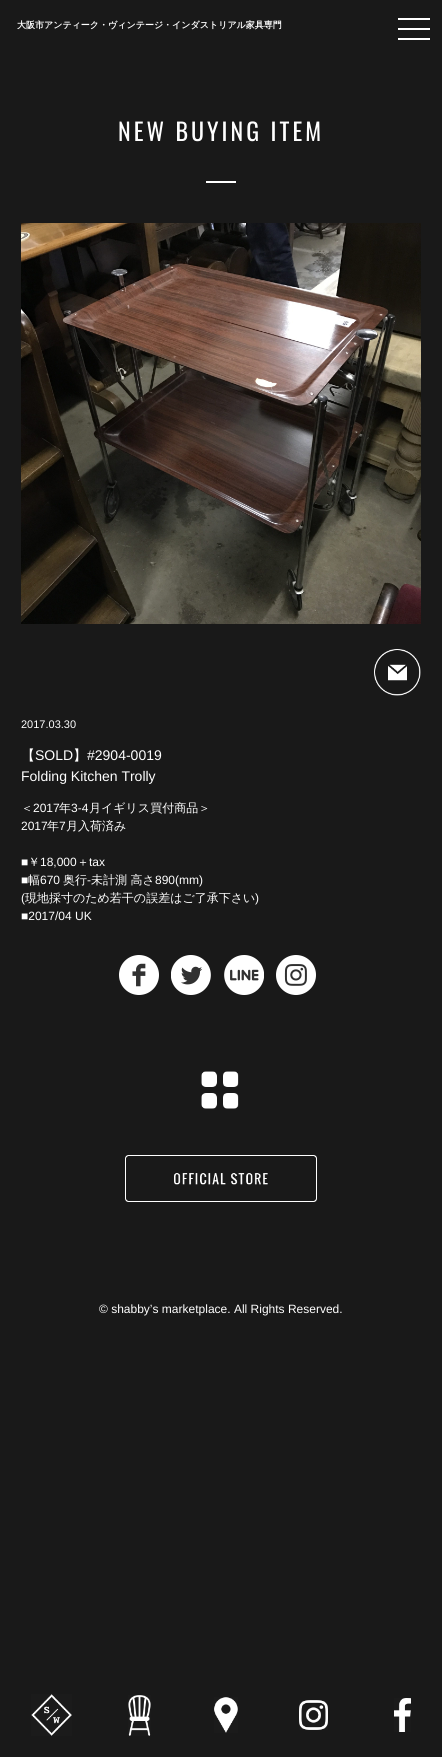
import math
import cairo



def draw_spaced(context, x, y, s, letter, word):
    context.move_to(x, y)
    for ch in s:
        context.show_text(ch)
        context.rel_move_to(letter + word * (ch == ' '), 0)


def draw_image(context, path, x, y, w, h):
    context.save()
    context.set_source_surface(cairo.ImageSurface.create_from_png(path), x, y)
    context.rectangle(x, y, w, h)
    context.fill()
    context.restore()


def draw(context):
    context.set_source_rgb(25 / 255, 25 / 255, 25 / 255)
    context.paint()
    context.set_source_rgb(1, 1, 1)
    context.rectangle(398, 28, 32, 2)
    context.fill()
    context.rectangle(398, 18, 32, 2)
    context.fill()
    context.rectangle(398, 38, 32, 2)
    context.fill()
    context.rectangle(206, 181, 30, 2)
    context.fill()
    draw_image(context, "images/1.png", 21, 223, 400, 401)
    draw_image(context, "images/2.png", 374, 649, 47, 47)
    draw_image(context, "images/3.png", 119, 955, 40, 40)
    draw_image(context, "images/4.png", 171, 955, 40, 40)
    draw_image(context, "images/5.png", 224, 955, 40, 40)
    draw_image(context, "images/6.png", 276, 955, 40, 40)
    draw_image(context, "images/7.png", 201, 1071, 38, 38)
    draw_image(context, "images/8.png", 125, 1155, 192, 47)
    draw_image(context, "images/9.png", 31, 1694, 41, 42)
    draw_image(context, "images/10.png", 128, 1695, 23, 41)
    draw_image(context, "images/11.png", 214, 1697, 24, 36)
    draw_image(context, "images/12.png", 299, 1700, 29, 30)
    draw_image(context, "images/13.png", 394, 1698, 17, 34)
    context.select_font_face("WenQuanYi Zen Hei", cairo.FontSlant.NORMAL, cairo.FontWeight.BOLD)
    context.set_font_size(9)
    context.move_to(17, 28)
    context.show_text("大阪市アンティーク・ヴィンテージ・インダストリアル家具専門")
    context.select_font_face("Oswald")
    context.set_font_size(24)
    draw_spaced(context, 118, 141, "NEW BUYING ITEM", 3, 0)
    context.select_font_face("Liberation Sans")
    context.set_font_size(11)
    context.move_to(21, 728)
    context.show_text("2017.03.30")
    context.select_font_face("WenQuanYi Zen Hei Medium")
    context.set_font_size(14)
    context.move_to(21, 760)
    context.show_text("【")
    context.select_font_face("Liberation Sans")
    context.move_to(35, 760)
    context.show_text("SOLD")
    context.select_font_face("WenQuanYi Zen Hei Medium")
    context.move_to(73, 760)
    context.show_text("】")
    context.select_font_face("Liberation Sans")
    context.move_to(87, 760)
    context.show_text("#2904-0019")
    context.move_to(21, 781)
    context.show_text("Folding Kitchen Trolly")
    context.select_font_face("WenQuanYi Zen Hei Medium")
    context.set_font_size(12)
    context.move_to(21, 812)
    context.show_text("＜")
    context.select_font_face("Liberation Sans")
    context.move_to(33, 812)
    context.show_text("2017")
    context.select_font_face("WenQuanYi Zen Hei Medium")
    context.move_to(59, 812)
    context.show_text("年")
    context.select_font_face("Liberation Sans")
    context.move_to(71, 812)
    context.show_text("3-4")
    context.select_font_face("WenQuanYi Zen Hei Medium")
    context.move_to(89, 812)
    context.show_text("月イギリス買付商品＞")
    context.select_font_face("Liberation Sans")
    context.move_to(21, 830)
    context.show_text("2017")
    context.select_font_face("WenQuanYi Zen Hei Medium")
    context.move_to(47, 830)
    context.show_text("年")
    context.select_font_face("Liberation Sans")
    context.move_to(59, 830)
    context.show_text("7")
    context.select_font_face("WenQuanYi Zen Hei Medium")
    context.move_to(66, 830)
    context.show_text("月入荷済み")
    context.select_font_face("Liberation Sans")
    context.move_to(21, 866)
    context.show_text("■")
    context.select_font_face("WenQuanYi Zen Hei Medium")
    context.move_to(28, 866)
    context.show_text("￥")
    context.select_font_face("Liberation Sans")
    context.move_to(40, 866)
    context.show_text("18,000")
    context.select_font_face("WenQuanYi Zen Hei Medium")
    context.move_to(77, 866)
    context.show_text("＋")
    context.select_font_face("Liberation Sans")
    context.move_to(89, 866)
    context.show_text("tax")
    context.move_to(21, 884)
    context.show_text("■")
    context.select_font_face("WenQuanYi Zen Hei Medium")
    context.move_to(28, 884)
    context.show_text("幅")
    context.select_font_face("Liberation Sans")
    context.move_to(40, 884)
    context.show_text("670")
    context.select_font_face("WenQuanYi Zen Hei Medium")
    context.move_to(63, 884)
    context.show_text("奥行")
    context.select_font_face("Liberation Sans")
    context.move_to(87, 884)
    context.show_text("-")
    context.select_font_face("WenQuanYi Zen Hei Medium")
    context.move_to(91, 884)
    context.show_text("未計測 高さ")
    context.select_font_face("Liberation Sans")
    context.move_to(155, 884)
    context.show_text("890(mm)")
    context.move_to(21, 902)
    context.show_text("(")
    context.select_font_face("WenQuanYi Zen Hei Medium")
    context.move_to(25, 902)
    context.show_text("現地採寸のため若干の誤差はご了承下さい")
    context.select_font_face("Liberation Sans")
    context.move_to(255, 902)
    context.show_text(")")
    context.move_to(21, 920)
    context.show_text("■2017/04 UK")
    context.move_to(99, 1313)
    context.show_text("© shabby’s marketplace. All Rights Reserved.")


surface = cairo.ImageSurface(cairo.Format.RGB24, 442, 1757)
context = cairo.Context(surface)
options = cairo.FontOptions()
options.set_hint_metrics(cairo.HintMetrics.OFF)
options.set_hint_style(cairo.HintStyle.NONE)
context.set_font_options(options)
context.set_miter_limit(4)
draw(context)
surface.write_to_png("out.png")
